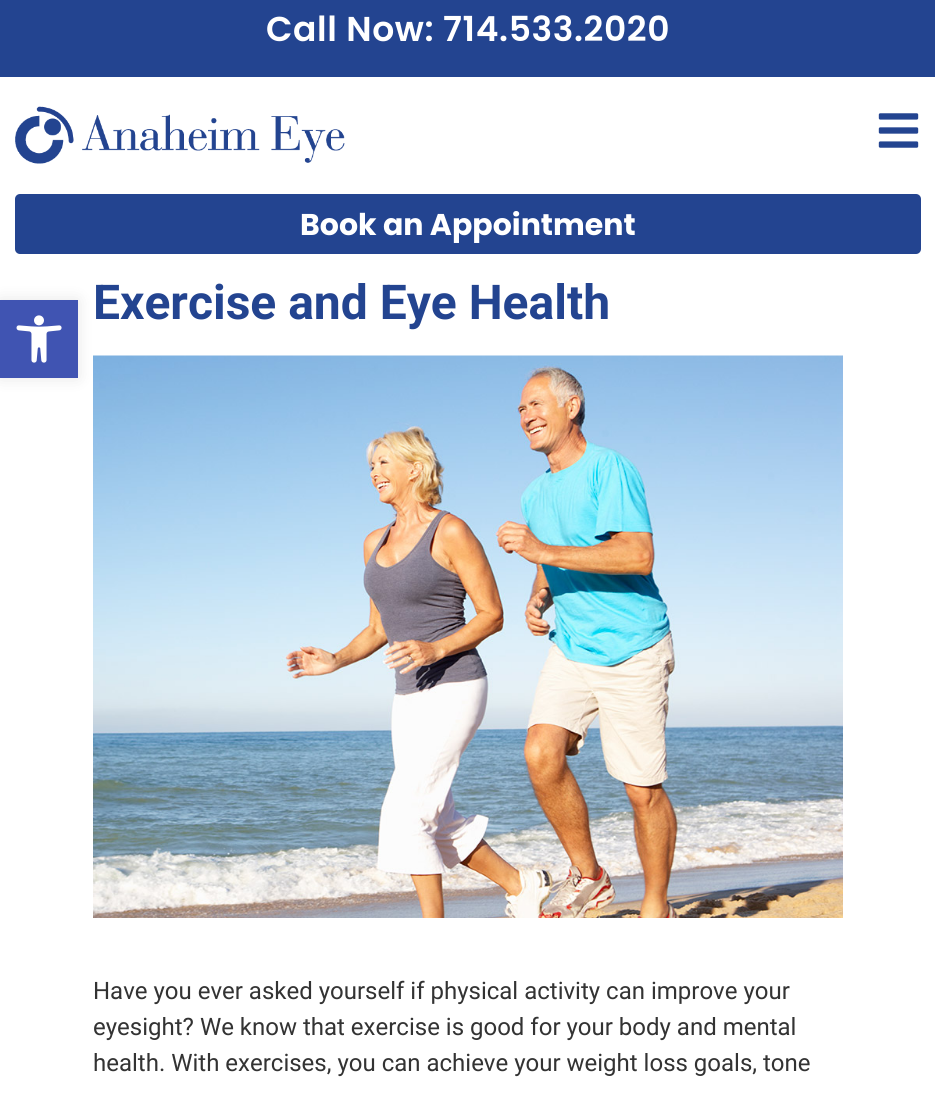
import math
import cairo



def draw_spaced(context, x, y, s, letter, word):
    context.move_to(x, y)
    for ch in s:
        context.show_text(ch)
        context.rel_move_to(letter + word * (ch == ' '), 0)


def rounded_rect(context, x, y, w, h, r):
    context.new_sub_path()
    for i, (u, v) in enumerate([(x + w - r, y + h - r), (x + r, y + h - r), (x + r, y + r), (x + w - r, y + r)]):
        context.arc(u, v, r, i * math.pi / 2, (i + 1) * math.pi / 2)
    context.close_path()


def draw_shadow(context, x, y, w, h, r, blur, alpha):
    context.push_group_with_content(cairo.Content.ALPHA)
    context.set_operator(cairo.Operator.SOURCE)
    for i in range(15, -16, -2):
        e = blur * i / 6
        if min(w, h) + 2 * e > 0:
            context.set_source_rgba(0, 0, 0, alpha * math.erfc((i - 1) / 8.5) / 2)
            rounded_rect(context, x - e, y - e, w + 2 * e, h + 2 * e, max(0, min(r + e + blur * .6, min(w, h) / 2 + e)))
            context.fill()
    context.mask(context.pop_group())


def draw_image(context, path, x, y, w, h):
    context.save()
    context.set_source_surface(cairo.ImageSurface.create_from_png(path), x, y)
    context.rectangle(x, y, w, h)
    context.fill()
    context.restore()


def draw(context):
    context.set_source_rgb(1, 1, 1)
    context.paint()
    context.set_source_rgb(35 / 255, 68 / 255, 144 / 255)
    context.rectangle(0, 0, 935, 77)
    context.fill()
    draw_image(context, "images/1.png", 15, 106, 330, 58)
    draw_image(context, "images/2.png", 878, 113, 41, 35)
    rounded_rect(context, 15, 194, 906, 60, 5)
    context.fill()
    draw_image(context, "images/4.png", 93, 355, 750, 563)
    context.set_source_rgb(0, 0, 0)
    draw_shadow(context, 0, 300, 78, 78, 0, 7.5, 0.1)
    context.set_source_rgb(64 / 255, 84 / 255, 178 / 255)
    context.rectangle(0, 300, 78, 78)
    context.fill()
    draw_image(context, "images/3.png", 16, 315, 46, 48)
    context.select_font_face("Poppins SemiBold")
    context.set_font_size(34.5)
    context.set_source_rgb(1, 1, 1)
    draw_spaced(context, 266, 41, "Call Now: 714.533.2020", 0.6, 0)
    context.select_font_face("Poppins", cairo.FontSlant.NORMAL, cairo.FontWeight.BOLD)
    context.set_font_size(30)
    context.move_to(300, 235)
    context.show_text("Book an Appointment")
    context.select_font_face("Roboto", cairo.FontSlant.NORMAL, cairo.FontWeight.BOLD)
    context.set_font_size(48)
    context.set_source_rgb(35 / 255, 68 / 255, 144 / 255)
    context.move_to(93, 319)
    context.show_text("Exercise and Eye Health")
    context.select_font_face("Roboto")
    context.set_font_size(24)
    context.set_source_rgb(51 / 255, 51 / 255, 51 / 255)
    context.move_to(93, 999)
    context.show_text("Have you ever asked yourself if physical activity can improve your")
    context.move_to(93, 1035)
    context.show_text("eyesight? We know that exercise is good for your body and mental")
    context.move_to(93, 1071)
    context.show_text("health. With exercises, you can achieve your weight loss goals, tone")


surface = cairo.ImageSurface(cairo.Format.RGB24, 935, 1100)
context = cairo.Context(surface)
options = cairo.FontOptions()
options.set_hint_metrics(cairo.HintMetrics.OFF)
options.set_hint_style(cairo.HintStyle.NONE)
context.set_font_options(options)
context.set_miter_limit(4)
draw(context)
surface.write_to_png("out.png")
